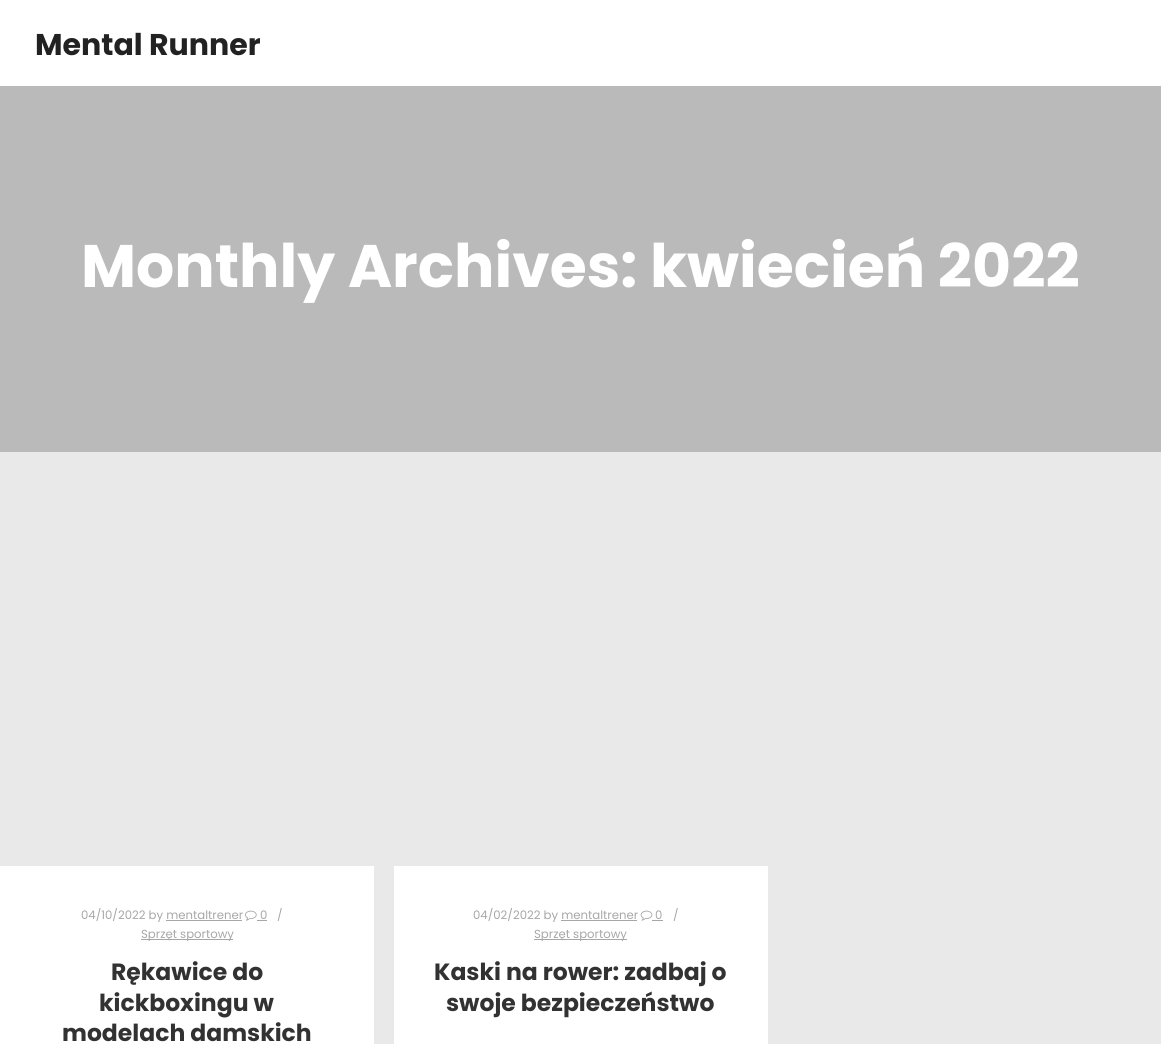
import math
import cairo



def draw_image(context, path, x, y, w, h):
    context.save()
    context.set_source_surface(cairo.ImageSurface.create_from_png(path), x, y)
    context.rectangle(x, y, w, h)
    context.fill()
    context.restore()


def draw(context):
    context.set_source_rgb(233 / 255, 233 / 255, 233 / 255)
    context.paint()
    context.set_source_rgb(1, 1, 1)
    context.rectangle(0, 0, 1161, 86)
    context.fill()
    context.set_source_rgb(186 / 255, 186 / 255, 186 / 255)
    context.rectangle(0, 86, 1161, 366)
    context.fill()
    context.set_source_rgb(1, 1, 1)
    context.rectangle(0, 866, 374, 178)
    context.fill()
    draw_image(context, "images/1.png", 245, 910, 12, 11)
    context.set_source_rgb(167 / 255, 167 / 255, 167 / 255)
    context.rectangle(257, 920, 10, 1)
    context.fill()
    context.rectangle(166, 920, 76, 1)
    context.fill()
    context.rectangle(141, 939, 92, 1)
    context.fill()
    context.set_source_rgb(1, 1, 1)
    context.rectangle(394, 866, 374, 178)
    context.fill()
    draw_image(context, "images/2.png", 640, 910, 13, 11)
    context.set_source_rgb(167 / 255, 167 / 255, 167 / 255)
    context.rectangle(652, 920, 11, 1)
    context.fill()
    context.rectangle(561, 920, 76, 1)
    context.fill()
    context.rectangle(534, 939, 93, 1)
    context.fill()
    context.select_font_face("Poppins", cairo.FontSlant.NORMAL, cairo.FontWeight.BOLD)
    context.set_font_size(30)
    context.set_source_rgb(34 / 255, 34 / 255, 34 / 255)
    context.move_to(35, 55)
    context.show_text("Mental Runner")
    context.set_font_size(60)
    context.set_source_rgb(1, 1, 1)
    context.move_to(81, 287)
    context.show_text("Monthly Archives: kwiecień 2022")
    context.select_font_face("Poppins")
    context.set_font_size(11.7)
    context.set_source_rgb(167 / 255, 167 / 255, 167 / 255)
    context.move_to(81, 919)
    context.show_text("04/10/2022 by mentaltrener")
    context.move_to(260, 919)
    context.show_text("0")
    context.move_to(277, 919)
    context.show_text("/")
    context.move_to(141, 938)
    context.show_text("Sprzęt sportowy")
    context.select_font_face("Poppins", cairo.FontSlant.NORMAL, cairo.FontWeight.BOLD)
    context.set_font_size(23.5)
    context.set_source_rgb(50 / 255, 50 / 255, 50 / 255)
    context.move_to(111, 980)
    context.show_text("Rękawice do")
    context.move_to(99, 1011)
    context.show_text("kickboxingu w")
    context.move_to(62, 1041)
    context.show_text("modelach damskich")
    context.select_font_face("Poppins")
    context.set_font_size(11.7)
    context.set_source_rgb(167 / 255, 167 / 255, 167 / 255)
    context.move_to(473, 919)
    context.show_text("04/02/2022 by mentaltrener")
    context.move_to(655, 919)
    context.show_text("0")
    context.move_to(673, 919)
    context.show_text("/")
    context.move_to(534, 938)
    context.show_text("Sprzęt sportowy")
    context.select_font_face("Poppins", cairo.FontSlant.NORMAL, cairo.FontWeight.BOLD)
    context.set_font_size(23.5)
    context.set_source_rgb(50 / 255, 50 / 255, 50 / 255)
    context.move_to(434, 980)
    context.show_text("Kaski na rower: zadbaj o")
    context.move_to(446, 1011)
    context.show_text("swoje bezpieczeństwo")


surface = cairo.ImageSurface(cairo.Format.RGB24, 1161, 1044)
context = cairo.Context(surface)
options = cairo.FontOptions()
options.set_hint_metrics(cairo.HintMetrics.OFF)
options.set_hint_style(cairo.HintStyle.NONE)
context.set_font_options(options)
context.set_miter_limit(4)
draw(context)
surface.write_to_png("out.png")
